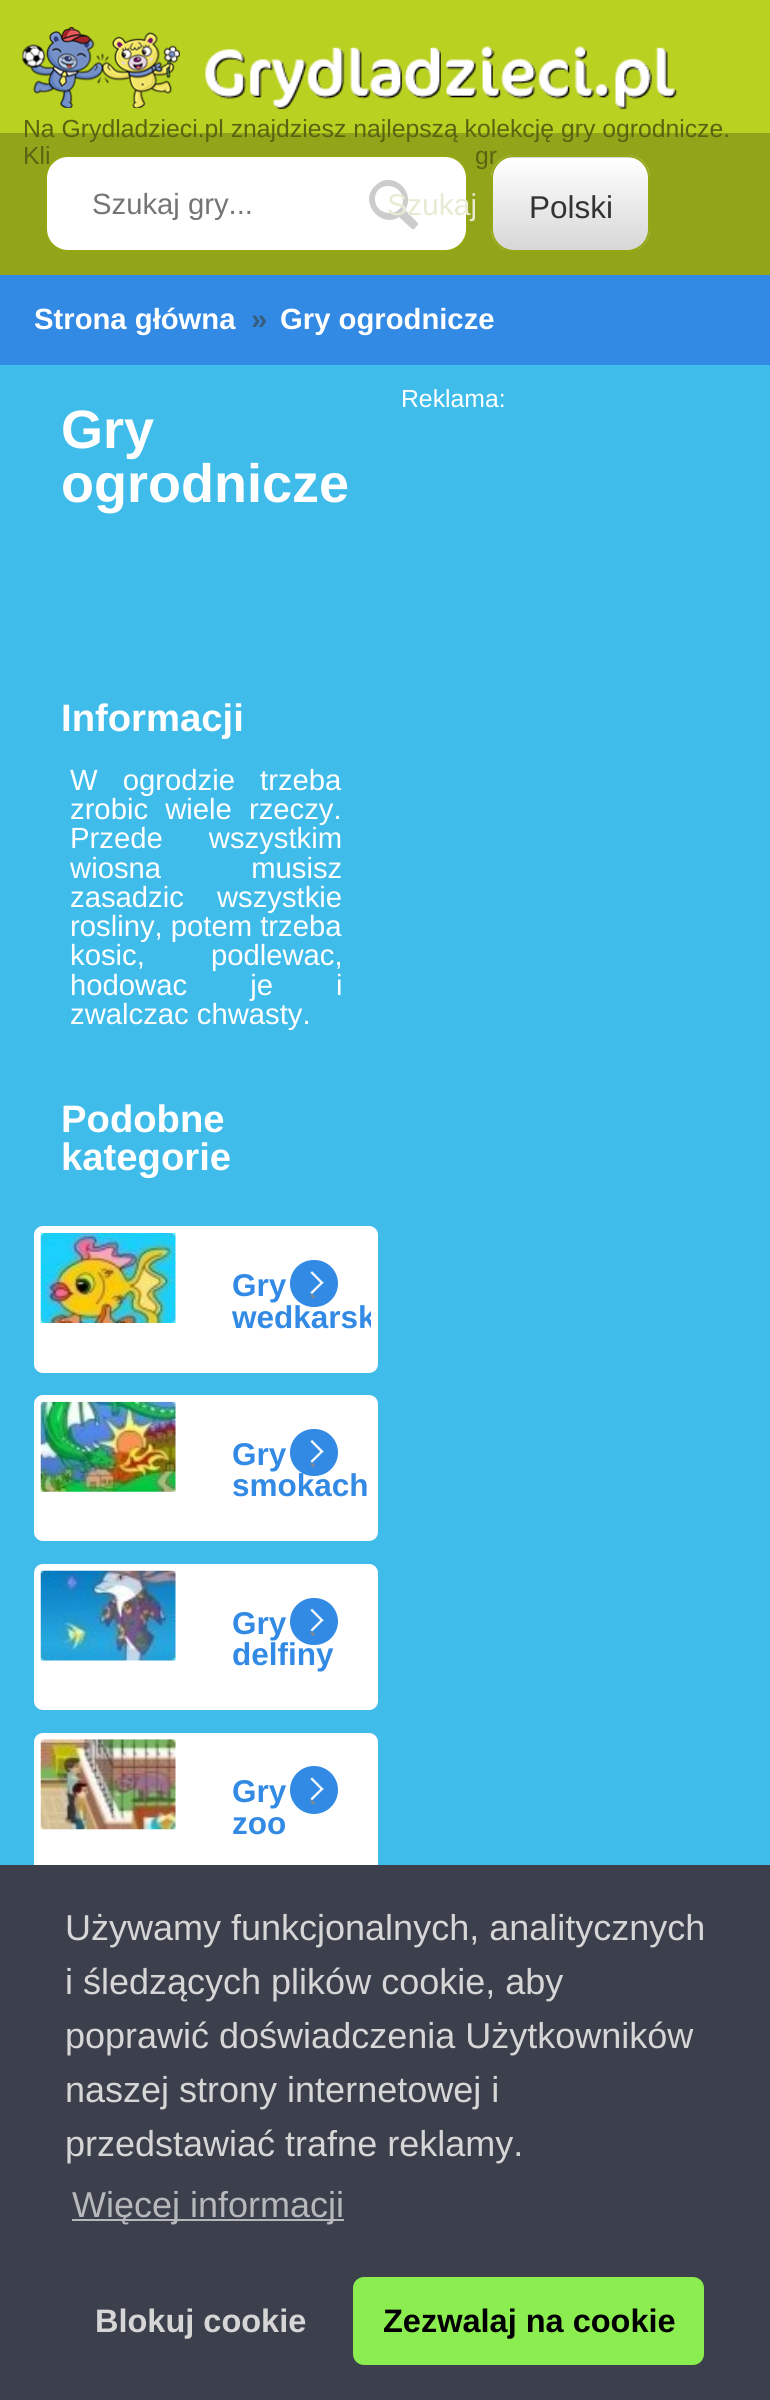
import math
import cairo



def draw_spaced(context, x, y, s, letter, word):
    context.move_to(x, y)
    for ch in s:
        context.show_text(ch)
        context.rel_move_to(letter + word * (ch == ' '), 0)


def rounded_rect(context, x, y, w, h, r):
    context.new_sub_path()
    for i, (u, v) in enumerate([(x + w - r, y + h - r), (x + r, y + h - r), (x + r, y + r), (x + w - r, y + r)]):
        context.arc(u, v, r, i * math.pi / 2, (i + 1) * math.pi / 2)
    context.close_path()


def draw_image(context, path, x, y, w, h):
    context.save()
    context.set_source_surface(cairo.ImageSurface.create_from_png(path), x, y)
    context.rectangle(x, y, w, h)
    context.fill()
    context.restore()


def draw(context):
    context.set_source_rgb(64 / 255, 188 / 255, 234 / 255)
    context.paint()
    context.set_source_rgb(185 / 255, 209 / 255, 33 / 255)
    context.rectangle(0, 0, 770, 133)
    context.fill()
    draw_image(context, "images/1.png", 22, 27, 158, 81)
    draw_image(context, "images/2.png", 205, 46, 472, 64)
    context.set_source_rgb(146 / 255, 165 / 255, 26 / 255)
    context.rectangle(0, 133, 770, 142)
    context.fill()
    context.save()
    rounded_rect(context, 491, 155, 159, 97, 23)
    context.clip()
    gradient = cairo.LinearGradient(570, 158, 570, 65)
    gradient.add_color_stop_rgba(0, 215 / 255, 215 / 255, 215 / 255, 1)
    gradient.add_color_stop_rgba(1, 1, 1, 1, 1)
    context.set_source(gradient)
    context.rectangle(502, 155, 137, 3)
    context.fill()
    context.restore()
    context.set_source_rgb(50 / 255, 138 / 255, 228 / 255)
    context.rectangle(0, 275, 770, 90)
    context.fill()
    context.set_source_rgb(1, 1, 1)
    rounded_rect(context, 37.5, 1229.5, 337, 140, 5.5)
    context.fill_preserve()
    context.set_line_width(7)
    context.stroke()
    draw_image(context, "images/3.png", 40, 1233, 136, 90)
    context.set_source_rgb(50 / 255, 138 / 255, 228 / 255)
    rounded_rect(context, 290, 1260, 48, 47, 23.5)
    context.fill()
    draw_image(context, "images/4.png", 310, 1271, 14, 27)
    context.set_source_rgb(1, 1, 1)
    rounded_rect(context, 37.5, 1398.5, 337, 139, 5.5)
    context.fill_preserve()
    context.stroke()
    draw_image(context, "images/5.png", 40, 1401, 136, 91)
    context.set_source_rgb(50 / 255, 138 / 255, 228 / 255)
    rounded_rect(context, 290, 1429, 48, 47, 23.5)
    context.fill()
    draw_image(context, "images/6.png", 310, 1440, 14, 27)
    context.set_source_rgb(1, 1, 1)
    rounded_rect(context, 37.5, 1567.5, 337, 139, 5.5)
    context.fill_preserve()
    context.stroke()
    draw_image(context, "images/7.png", 40, 1570, 136, 91)
    context.set_source_rgb(50 / 255, 138 / 255, 228 / 255)
    rounded_rect(context, 290, 1598, 48, 47, 23.5)
    context.fill()
    draw_image(context, "images/8.png", 310, 1608, 14, 28)
    context.set_source_rgb(1, 1, 1)
    rounded_rect(context, 37.5, 1736.5, 337, 139, 5.5)
    context.fill_preserve()
    context.stroke()
    draw_image(context, "images/9.png", 40, 1739, 136, 91)
    context.set_source_rgb(50 / 255, 138 / 255, 228 / 255)
    context.arc(314, 1790, 24, 0, 2 * math.pi)
    context.fill()
    draw_image(context, "images/10.png", 310, 1777, 14, 28)
    context.set_source_rgb(60 / 255, 64 / 255, 77 / 255)
    context.rectangle(0, 1865, 770, 535)
    context.fill()
    context.set_source_rgb(183 / 255, 184 / 255, 187 / 255)
    context.rectangle(72, 2219, 272, 2)
    context.fill()
    context.set_source_rgb(139 / 255, 237 / 255, 79 / 255)
    rounded_rect(context, 353, 2277, 351, 88, 11)
    context.fill()
    context.select_font_face("Liberation Sans")
    context.set_font_size(24.75)
    context.set_source_rgb(89 / 255, 100 / 255, 18 / 255)
    context.move_to(23, 137)
    context.show_text("Na Grydladzieci.pl znajdziesz najlepszą kolekcję gry ogrodnicze.")
    context.move_to(23, 164)
    context.show_text("Kli")
    context.move_to(475, 164)
    context.show_text("gr")
    context.set_source_rgb(1, 1, 1)
    rounded_rect(context, 46, 156, 421, 95, 22)
    context.fill_preserve()
    context.set_source_rgb(148 / 255, 168 / 255, 19 / 255)
    context.set_line_width(2)
    context.stroke()
    context.set_font_size(29.25)
    context.set_source_rgb(117 / 255, 117 / 255, 117 / 255)
    context.move_to(92, 214)
    context.show_text("Szukaj gry...")
    context.set_source_rgb(205 / 255, 204 / 255, 204 / 255)
    context.new_path()
    context.move_to(417, 222)
    context.line_to(405, 210)
    context.curve_to(417, 191, 391, 169, 375, 186)
    context.curve_to(358, 202, 381, 229, 399, 217)
    context.line_to(412, 229)
    context.curve_to(414, 230, 415, 228, 416, 227)
    context.curve_to(418, 225, 419, 224, 417, 222)
    context.close_path()
    context.move_to(375, 199)
    context.curve_to(375, 181, 402, 182, 403, 200)
    context.curve_to(403, 218, 375, 217, 375, 199)
    context.close_path()
    context.fill()
    context.set_font_size(30)
    context.set_source_rgb(232 / 255, 235 / 255, 211 / 255)
    context.move_to(387, 215)
    context.show_text("Szukaj")
    context.save()
    rounded_rect(context, 491, 155, 159, 97, 23)
    context.clip()
    gradient = cairo.LinearGradient(570, 250, 570, 158)
    gradient.add_color_stop_rgba(0, 215 / 255, 215 / 255, 215 / 255, 1)
    gradient.add_color_stop_rgba(1, 1, 1, 1, 1)
    context.set_source(gradient)
    context.rectangle(491, 158, 159, 92)
    context.fill()
    context.restore()
    rounded_rect(context, 492, 156, 157, 95, 22)
    context.set_source_rgb(148 / 255, 168 / 255, 19 / 255)
    context.stroke()
    context.set_font_size(31.5)
    context.set_source_rgb(51 / 255, 51 / 255, 51 / 255)
    context.move_to(529, 218)
    context.show_text("Polski")
    context.select_font_face("Liberation Sans", cairo.FontSlant.NORMAL, cairo.FontWeight.BOLD)
    context.set_font_size(29.25)
    context.set_source_rgb(1, 1, 1)
    context.move_to(34, 329)
    context.show_text("Strona główna")
    context.set_source_rgb(55 / 255, 93 / 255, 125 / 255)
    context.move_to(251, 329)
    context.show_text("»")
    context.set_source_rgb(1, 1, 1)
    context.move_to(280, 329)
    context.show_text("Gry ogrodnicze")
    context.select_font_face("Liberation Sans")
    context.set_font_size(24.75)
    context.move_to(401, 407)
    context.show_text("Reklama:")
    context.select_font_face("Liberation Sans", cairo.FontSlant.NORMAL, cairo.FontWeight.BOLD)
    context.set_font_size(54)
    context.move_to(61, 448)
    context.show_text("Gry")
    context.move_to(61, 502)
    context.show_text("ogrodnicze")
    context.set_font_size(38.25)
    context.move_to(61, 731)
    context.show_text("Informacji")
    context.select_font_face("Liberation Sans")
    context.set_font_size(29.25)
    draw_spaced(context, 70, 790, "W ogrodzie trzeba", 0, 17)
    draw_spaced(context, 70, 819, "zrobic wiele rzeczy.", 0, 9)
    draw_spaced(context, 70, 848, "Przede wszystkim", 0, 38)
    draw_spaced(context, 70, 878, "wiosna musisz", 0, 82)
    draw_spaced(context, 70, 907, "zasadzic wszystkie", 0, 25)
    context.move_to(70, 936)
    context.show_text("rosliny, potem trzeba")
    draw_spaced(context, 70, 965, "kosic, podlewac,", 0, 58)
    draw_spaced(context, 70, 995, "hodowac je i", 0, 55)
    context.move_to(70, 1024)
    context.show_text("zwalczac chwasty.")
    context.select_font_face("Liberation Sans", cairo.FontSlant.NORMAL, cairo.FontWeight.BOLD)
    context.set_font_size(38.25)
    context.move_to(61, 1132)
    context.show_text("Podobne")
    context.move_to(61, 1170)
    context.show_text("kategorie")
    context.set_font_size(31.5)
    context.set_source_rgb(50 / 255, 138 / 255, 228 / 255)
    context.move_to(232, 1296)
    context.show_text("Gry")
    context.save()
    rounded_rect(context, 41, 1233, 330, 133, 2)
    context.clip()
    context.move_to(232, 1328)
    context.show_text("wedkarsk")
    context.restore()
    context.move_to(232, 1465)
    context.show_text("Gry")
    context.move_to(232, 1496)
    context.show_text("smokach")
    context.move_to(232, 1634)
    context.show_text("Gry")
    context.move_to(232, 1665)
    context.show_text("delfiny")
    context.move_to(232, 1802)
    context.show_text("Gry")
    context.move_to(232, 1834)
    context.show_text("zoo")
    context.select_font_face("Liberation Sans")
    context.set_font_size(36)
    context.set_source_rgb(214 / 255, 214 / 255, 214 / 255)
    context.move_to(65, 1940)
    context.show_text("Używamy funkcjonalnych, analitycznych")
    context.move_to(65, 1994)
    context.show_text("i śledzących plików cookie, aby")
    context.move_to(65, 2048)
    context.show_text("poprawić doświadczenia Użytkowników")
    context.move_to(65, 2102)
    context.show_text("naszej strony internetowej i")
    context.move_to(65, 2156)
    context.show_text("przedstawiać trafne reklamy.")
    context.set_source_rgb(183 / 255, 184 / 255, 187 / 255)
    context.move_to(72, 2217)
    context.show_text("Więcej informacji")
    context.select_font_face("Liberation Sans", cairo.FontSlant.NORMAL, cairo.FontWeight.BOLD)
    context.set_font_size(32.5)
    context.set_source_rgb(214 / 255, 214 / 255, 214 / 255)
    context.move_to(95, 2332)
    context.show_text("Blokuj cookie")
    context.set_source_rgb(0, 0, 0)
    context.move_to(383, 2332)
    context.show_text("Zezwalaj na cookie")


surface = cairo.ImageSurface(cairo.Format.RGB24, 770, 2400)
context = cairo.Context(surface)
options = cairo.FontOptions()
options.set_hint_metrics(cairo.HintMetrics.OFF)
options.set_hint_style(cairo.HintStyle.NONE)
context.set_font_options(options)
context.set_miter_limit(4)
draw(context)
surface.write_to_png("out.png")
